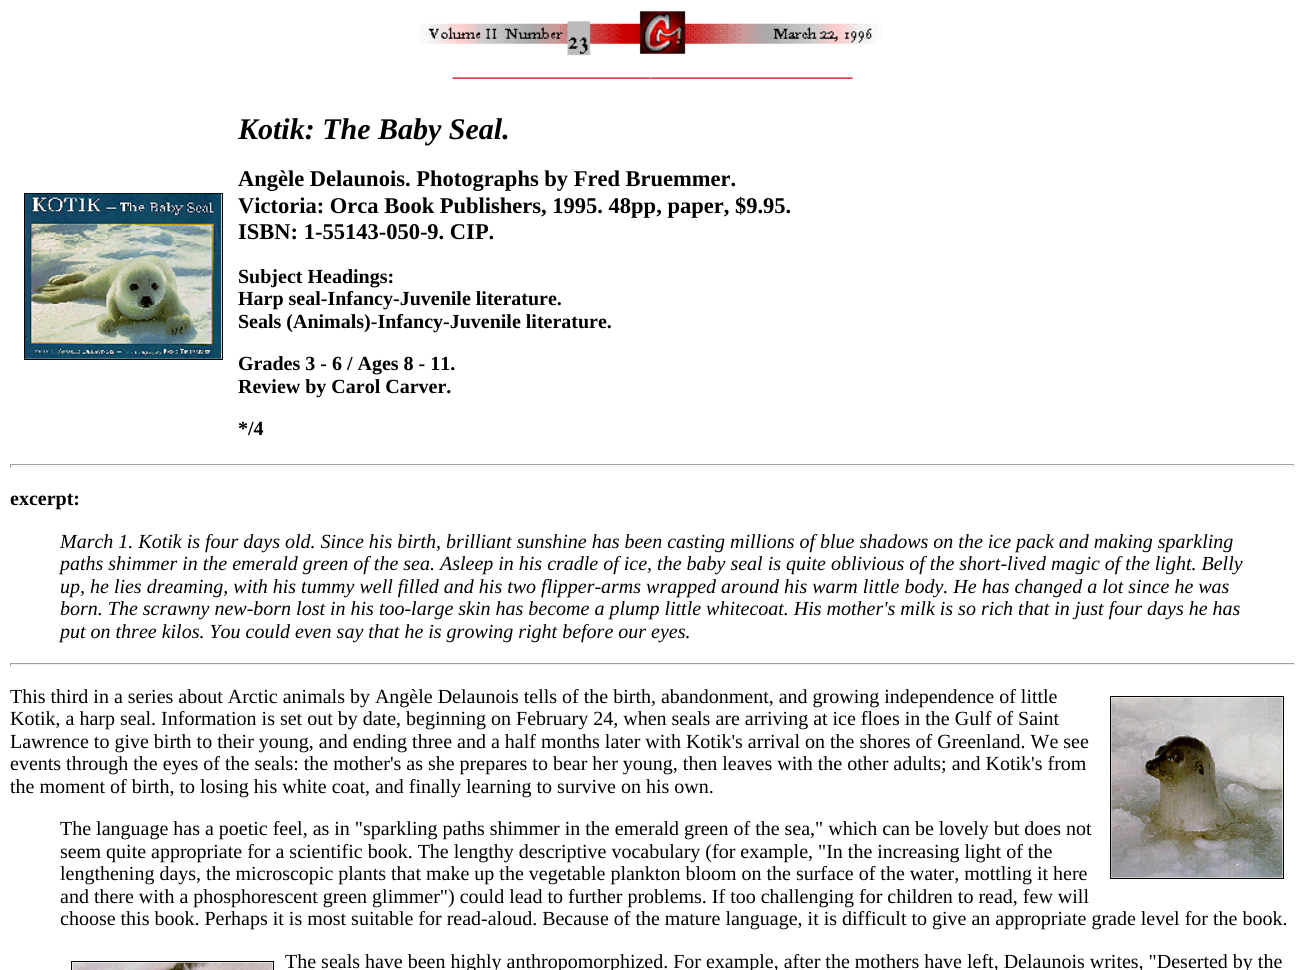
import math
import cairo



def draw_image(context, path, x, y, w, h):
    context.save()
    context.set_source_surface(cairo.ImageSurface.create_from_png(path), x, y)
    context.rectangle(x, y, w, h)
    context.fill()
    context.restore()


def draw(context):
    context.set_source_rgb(1, 1, 1)
    context.paint()
    draw_image(context, "images/1.png", 417, 11, 465, 45)
    draw_image(context, "images/2.png", 452, 77, 401, 2)
    context.rectangle(24.5, 193.5, 198, 166)
    context.set_source_rgb(0, 0, 0)
    context.set_line_width(1)
    context.stroke()
    draw_image(context, "images/3.png", 25, 193, 197, 166)
    context.set_source_rgb(159 / 255, 159 / 255, 159 / 255)
    context.rectangle(10, 464, 1285, 1)
    context.fill()
    context.set_source_rgb(238 / 255, 238 / 255, 238 / 255)
    context.rectangle(1294, 464, 1, 4)
    context.fill()
    context.rectangle(10, 466, 1285, 1)
    context.fill()
    context.set_source_rgb(159 / 255, 159 / 255, 159 / 255)
    context.rectangle(10, 464, 1, 4)
    context.fill()
    context.rectangle(10, 663, 1285, 1)
    context.fill()
    context.set_source_rgb(238 / 255, 238 / 255, 238 / 255)
    context.rectangle(1294, 663, 1, 3)
    context.fill()
    context.rectangle(10, 664, 1285, 1)
    context.fill()
    context.set_source_rgb(159 / 255, 159 / 255, 159 / 255)
    context.rectangle(10, 663, 1, 3)
    context.fill()
    context.rectangle(1110.5, 696.5, 173, 182)
    context.set_source_rgb(0, 0, 0)
    context.stroke()
    draw_image(context, "images/4.png", 1111, 697, 172, 181)
    context.rectangle(71.5, 961.5, 202, 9)
    context.stroke()
    draw_image(context, "images/5.png", 72, 962, 201, 8)
    context.select_font_face("Liberation Serif", cairo.FontSlant.ITALIC, cairo.FontWeight.BOLD)
    context.set_font_size(30)
    context.move_to(238, 139)
    context.show_text("Kotik: The Baby Seal.")
    context.select_font_face("Liberation Serif", cairo.FontSlant.NORMAL, cairo.FontWeight.BOLD)
    context.set_font_size(22.5)
    context.move_to(238, 186)
    context.show_text("Angèle Delaunois. Photographs by Fred Bruemmer.")
    context.move_to(238, 213)
    context.show_text("Victoria: Orca Book Publishers, 1995. 48pp, paper, $9.95.")
    context.move_to(238, 239)
    context.show_text("ISBN: 1-55143-050-9. CIP.")
    context.set_font_size(20)
    context.move_to(238, 283)
    context.show_text("Subject Headings:")
    context.move_to(238, 305)
    context.show_text("Harp seal-Infancy-Juvenile literature.")
    context.move_to(238, 328)
    context.show_text("Seals (Animals)-Infancy-Juvenile literature.")
    context.move_to(238, 370)
    context.show_text("Grades 3 - 6 / Ages 8 - 11.")
    context.move_to(238, 393)
    context.show_text("Review by Carol Carver.")
    context.move_to(238, 435)
    context.show_text("*/4")
    context.move_to(10, 505)
    context.show_text("excerpt:")
    context.select_font_face("Liberation Serif", cairo.FontSlant.ITALIC)
    context.move_to(60, 548)
    context.show_text("March 1. Kotik is four days old. Since his birth, brilliant sunshine has been casting millions of blue shadows on the ice pack and making sparkling")
    context.move_to(60, 570)
    context.show_text("paths shimmer in the emerald green of the sea. Asleep in his cradle of ice, the baby seal is quite oblivious of the short-lived magic of the light. Belly")
    context.move_to(60, 593)
    context.show_text("up, he lies dreaming, with his tummy well filled and his two flipper-arms wrapped around his warm little body. He has changed a lot since he was")
    context.move_to(60, 615)
    context.show_text("born. The scrawny new-born lost in his too-large skin has become a plump little whitecoat. His mother's milk is so rich that in just four days he has")
    context.move_to(60, 638)
    context.show_text("put on three kilos. You could even say that he is growing right before our eyes.")
    context.select_font_face("Liberation Serif")
    context.move_to(10, 703)
    context.show_text("This third in a series about Arctic animals by Angèle Delaunois tells of the birth, abandonment, and growing independence of little")
    context.move_to(10, 725)
    context.show_text("Kotik, a harp seal. Information is set out by date, beginning on February 24, when seals are arriving at ice floes in the Gulf of Saint")
    context.move_to(10, 748)
    context.show_text("Lawrence to give birth to their young, and ending three and a half months later with Kotik's arrival on the shores of Greenland. We see")
    context.move_to(10, 770)
    context.show_text("events through the eyes of the seals: the mother's as she prepares to bear her young, then leaves with the other adults; and Kotik's from")
    context.move_to(10, 793)
    context.show_text("the moment of birth, to losing his white coat, and finally learning to survive on his own.")
    context.move_to(60, 835)
    context.show_text("The language has a poetic feel, as in \"sparkling paths shimmer in the emerald green of the sea,\" which can be lovely but does not")
    context.move_to(60, 858)
    context.show_text("seem quite appropriate for a scientific book. The lengthy descriptive vocabulary (for example, \"In the increasing light of the")
    context.move_to(60, 880)
    context.show_text("lengthening days, the microscopic plants that make up the vegetable plankton bloom on the surface of the water, mottling it here")
    context.move_to(60, 903)
    context.show_text("and there with a phosphorescent green glimmer\") could lead to further problems. If too challenging for children to read, few will")
    context.move_to(60, 925)
    context.show_text("choose this book. Perhaps it is most suitable for read-aloud. Because of the mature language, it is difficult to give an appropriate grade level for the book.")
    context.move_to(285, 968)
    context.show_text("The seals have been highly anthropomorphized. For example, after the mothers have left, Delaunois writes, \"Deserted by the")


surface = cairo.ImageSurface(cairo.Format.RGB24, 1304, 970)
context = cairo.Context(surface)
options = cairo.FontOptions()
options.set_hint_metrics(cairo.HintMetrics.OFF)
options.set_hint_style(cairo.HintStyle.NONE)
context.set_font_options(options)
context.set_miter_limit(4)
draw(context)
surface.write_to_png("out.png")
